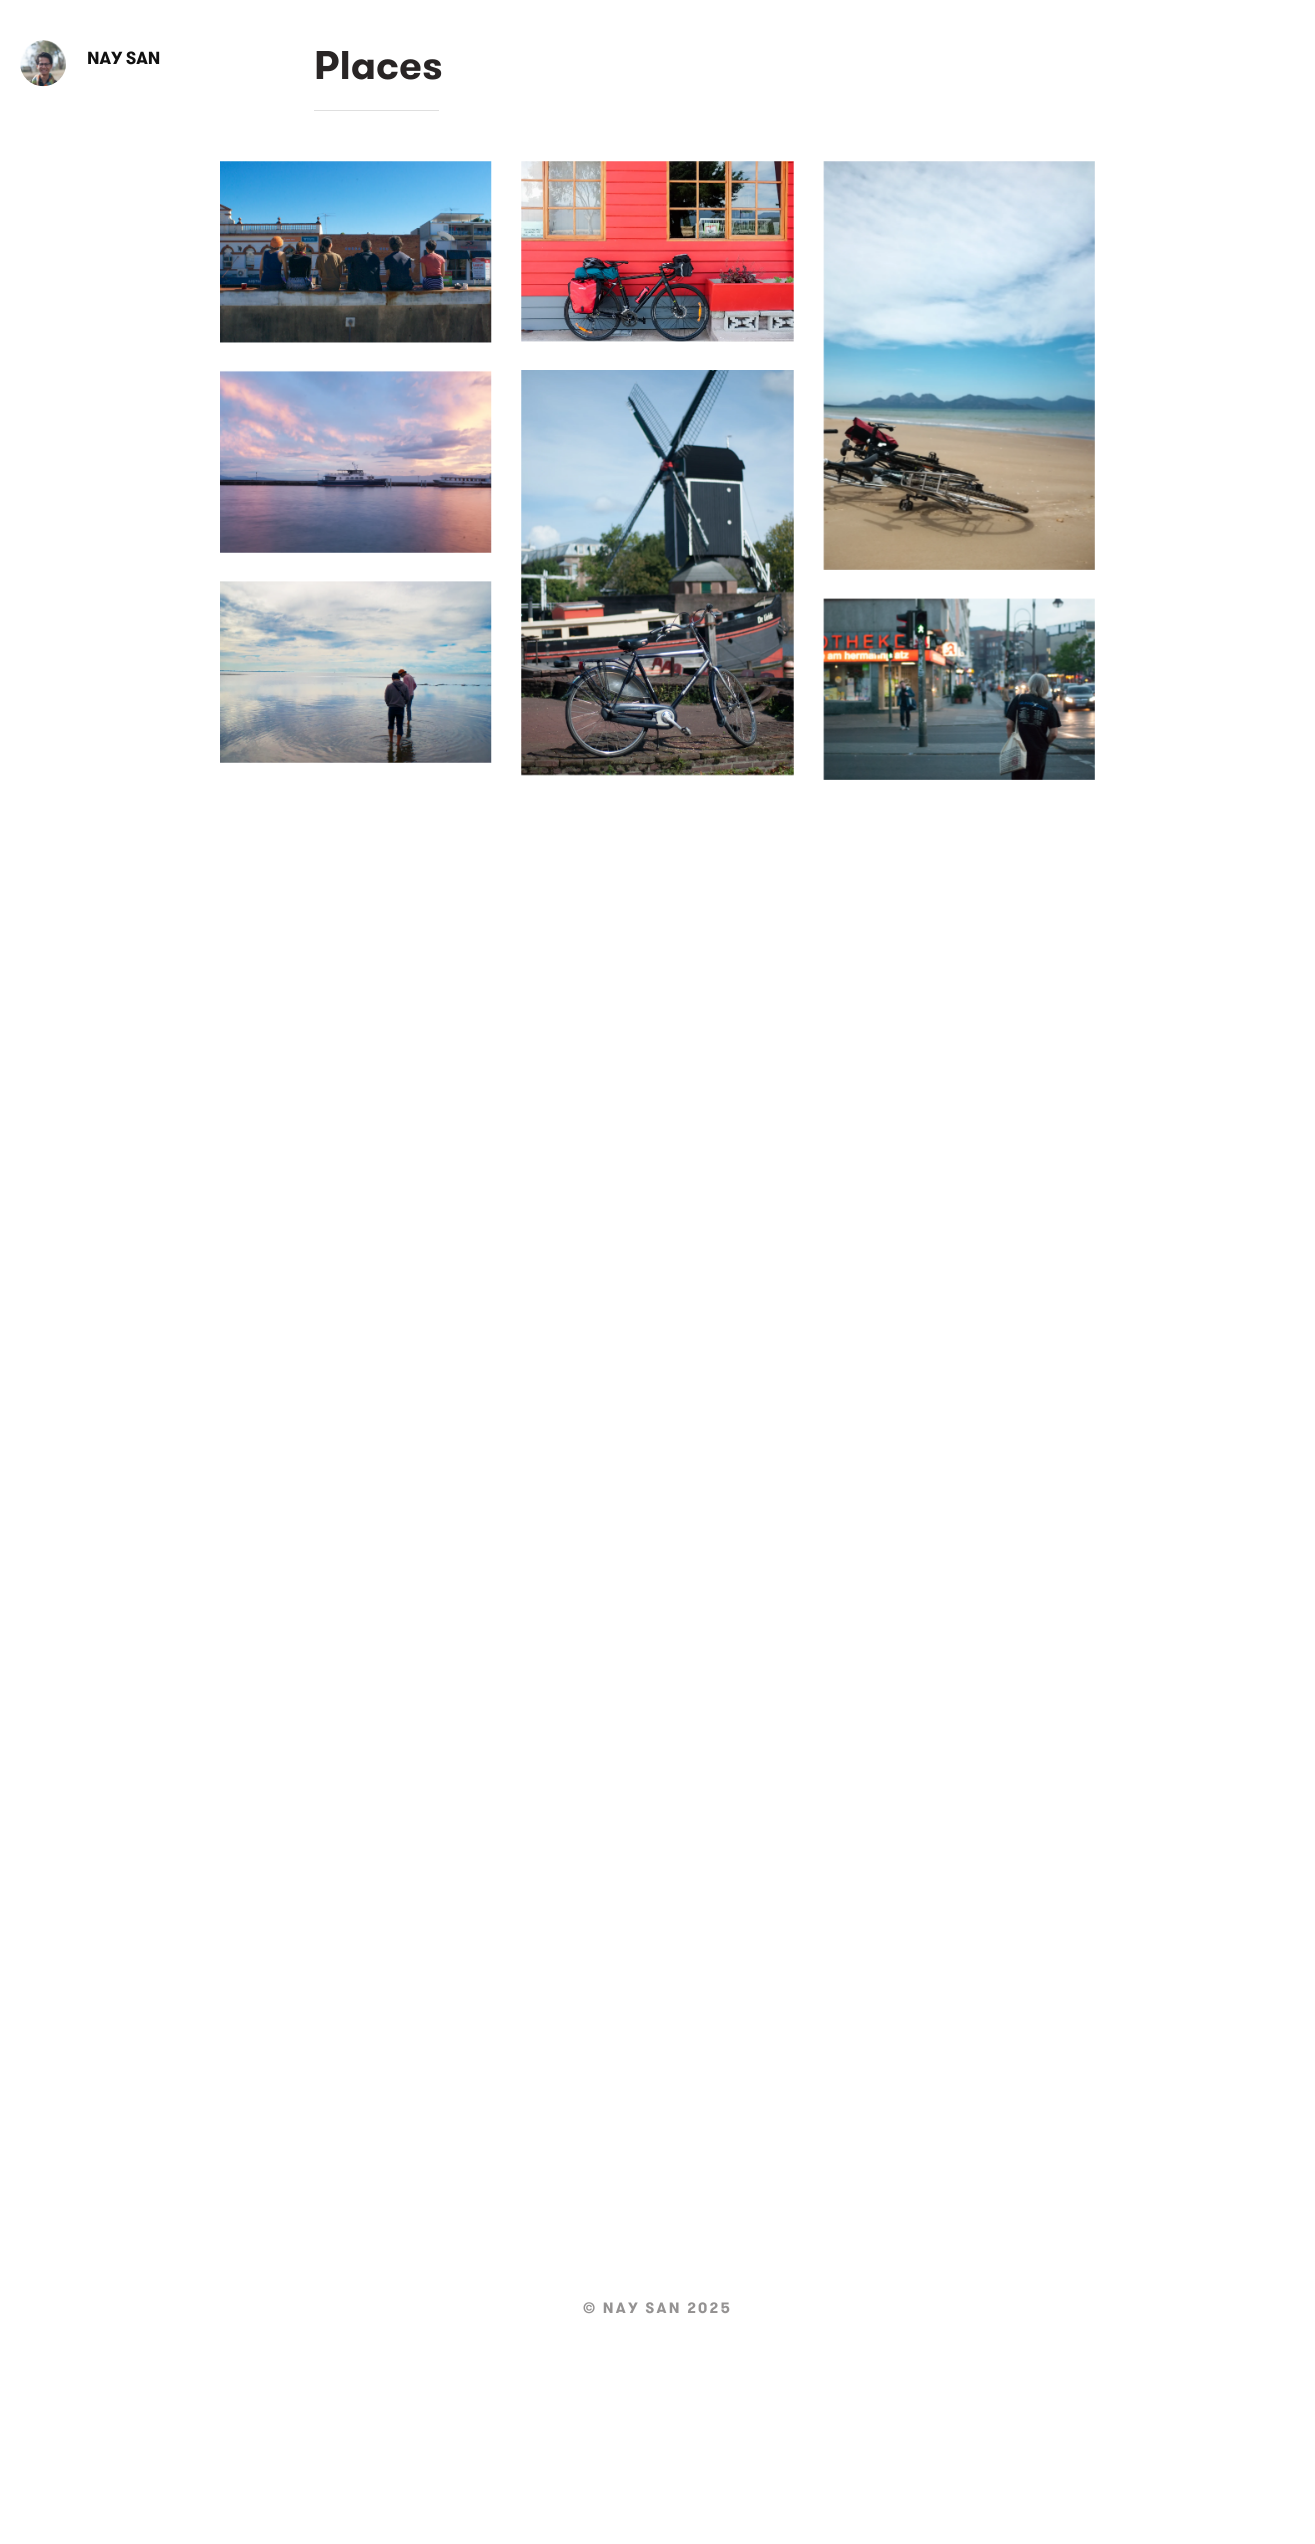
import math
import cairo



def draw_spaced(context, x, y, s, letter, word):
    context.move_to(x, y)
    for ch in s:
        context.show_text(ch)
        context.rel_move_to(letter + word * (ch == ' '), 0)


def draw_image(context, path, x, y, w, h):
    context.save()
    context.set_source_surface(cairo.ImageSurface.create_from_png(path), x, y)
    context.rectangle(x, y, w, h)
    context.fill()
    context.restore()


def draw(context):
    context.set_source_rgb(1, 1, 1)
    context.paint()
    draw_image(context, "images/1.png", 20, 40, 46, 47)
    context.set_source_rgb(223 / 255, 223 / 255, 223 / 255)
    context.rectangle(314, 110, 125, 1)
    context.fill()
    draw_image(context, "images/2.png", 220, 161, 272, 182)
    draw_image(context, "images/3.png", 220, 370, 272, 183)
    draw_image(context, "images/4.png", 220, 581, 272, 182)
    draw_image(context, "images/5.png", 521, 161, 273, 181)
    draw_image(context, "images/6.png", 521, 370, 273, 406)
    draw_image(context, "images/7.png", 823, 161, 272, 409)
    draw_image(context, "images/8.png", 823, 598, 272, 182)
    context.select_font_face("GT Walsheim", cairo.FontSlant.NORMAL, cairo.FontWeight.BOLD)
    context.set_font_size(17.5)
    context.set_source_rgb(17 / 255, 17 / 255, 17 / 255)
    draw_spaced(context, 87, 64, "NAY SAN", 0, -1)
    context.set_font_size(40)
    context.set_source_rgb(41 / 255, 37 / 255, 37 / 255)
    context.move_to(314, 79)
    context.show_text("Places")
    context.set_font_size(15)
    context.set_source_rgb(148 / 255, 146 / 255, 146 / 255)
    draw_spaced(context, 583, 2313, "© NAY SAN 2025", 2.25, -0.5)


surface = cairo.ImageSurface(cairo.Format.RGB24, 1315, 2544)
context = cairo.Context(surface)
options = cairo.FontOptions()
options.set_hint_metrics(cairo.HintMetrics.OFF)
options.set_hint_style(cairo.HintStyle.NONE)
context.set_font_options(options)
context.set_miter_limit(4)
draw(context)
surface.write_to_png("out.png")
